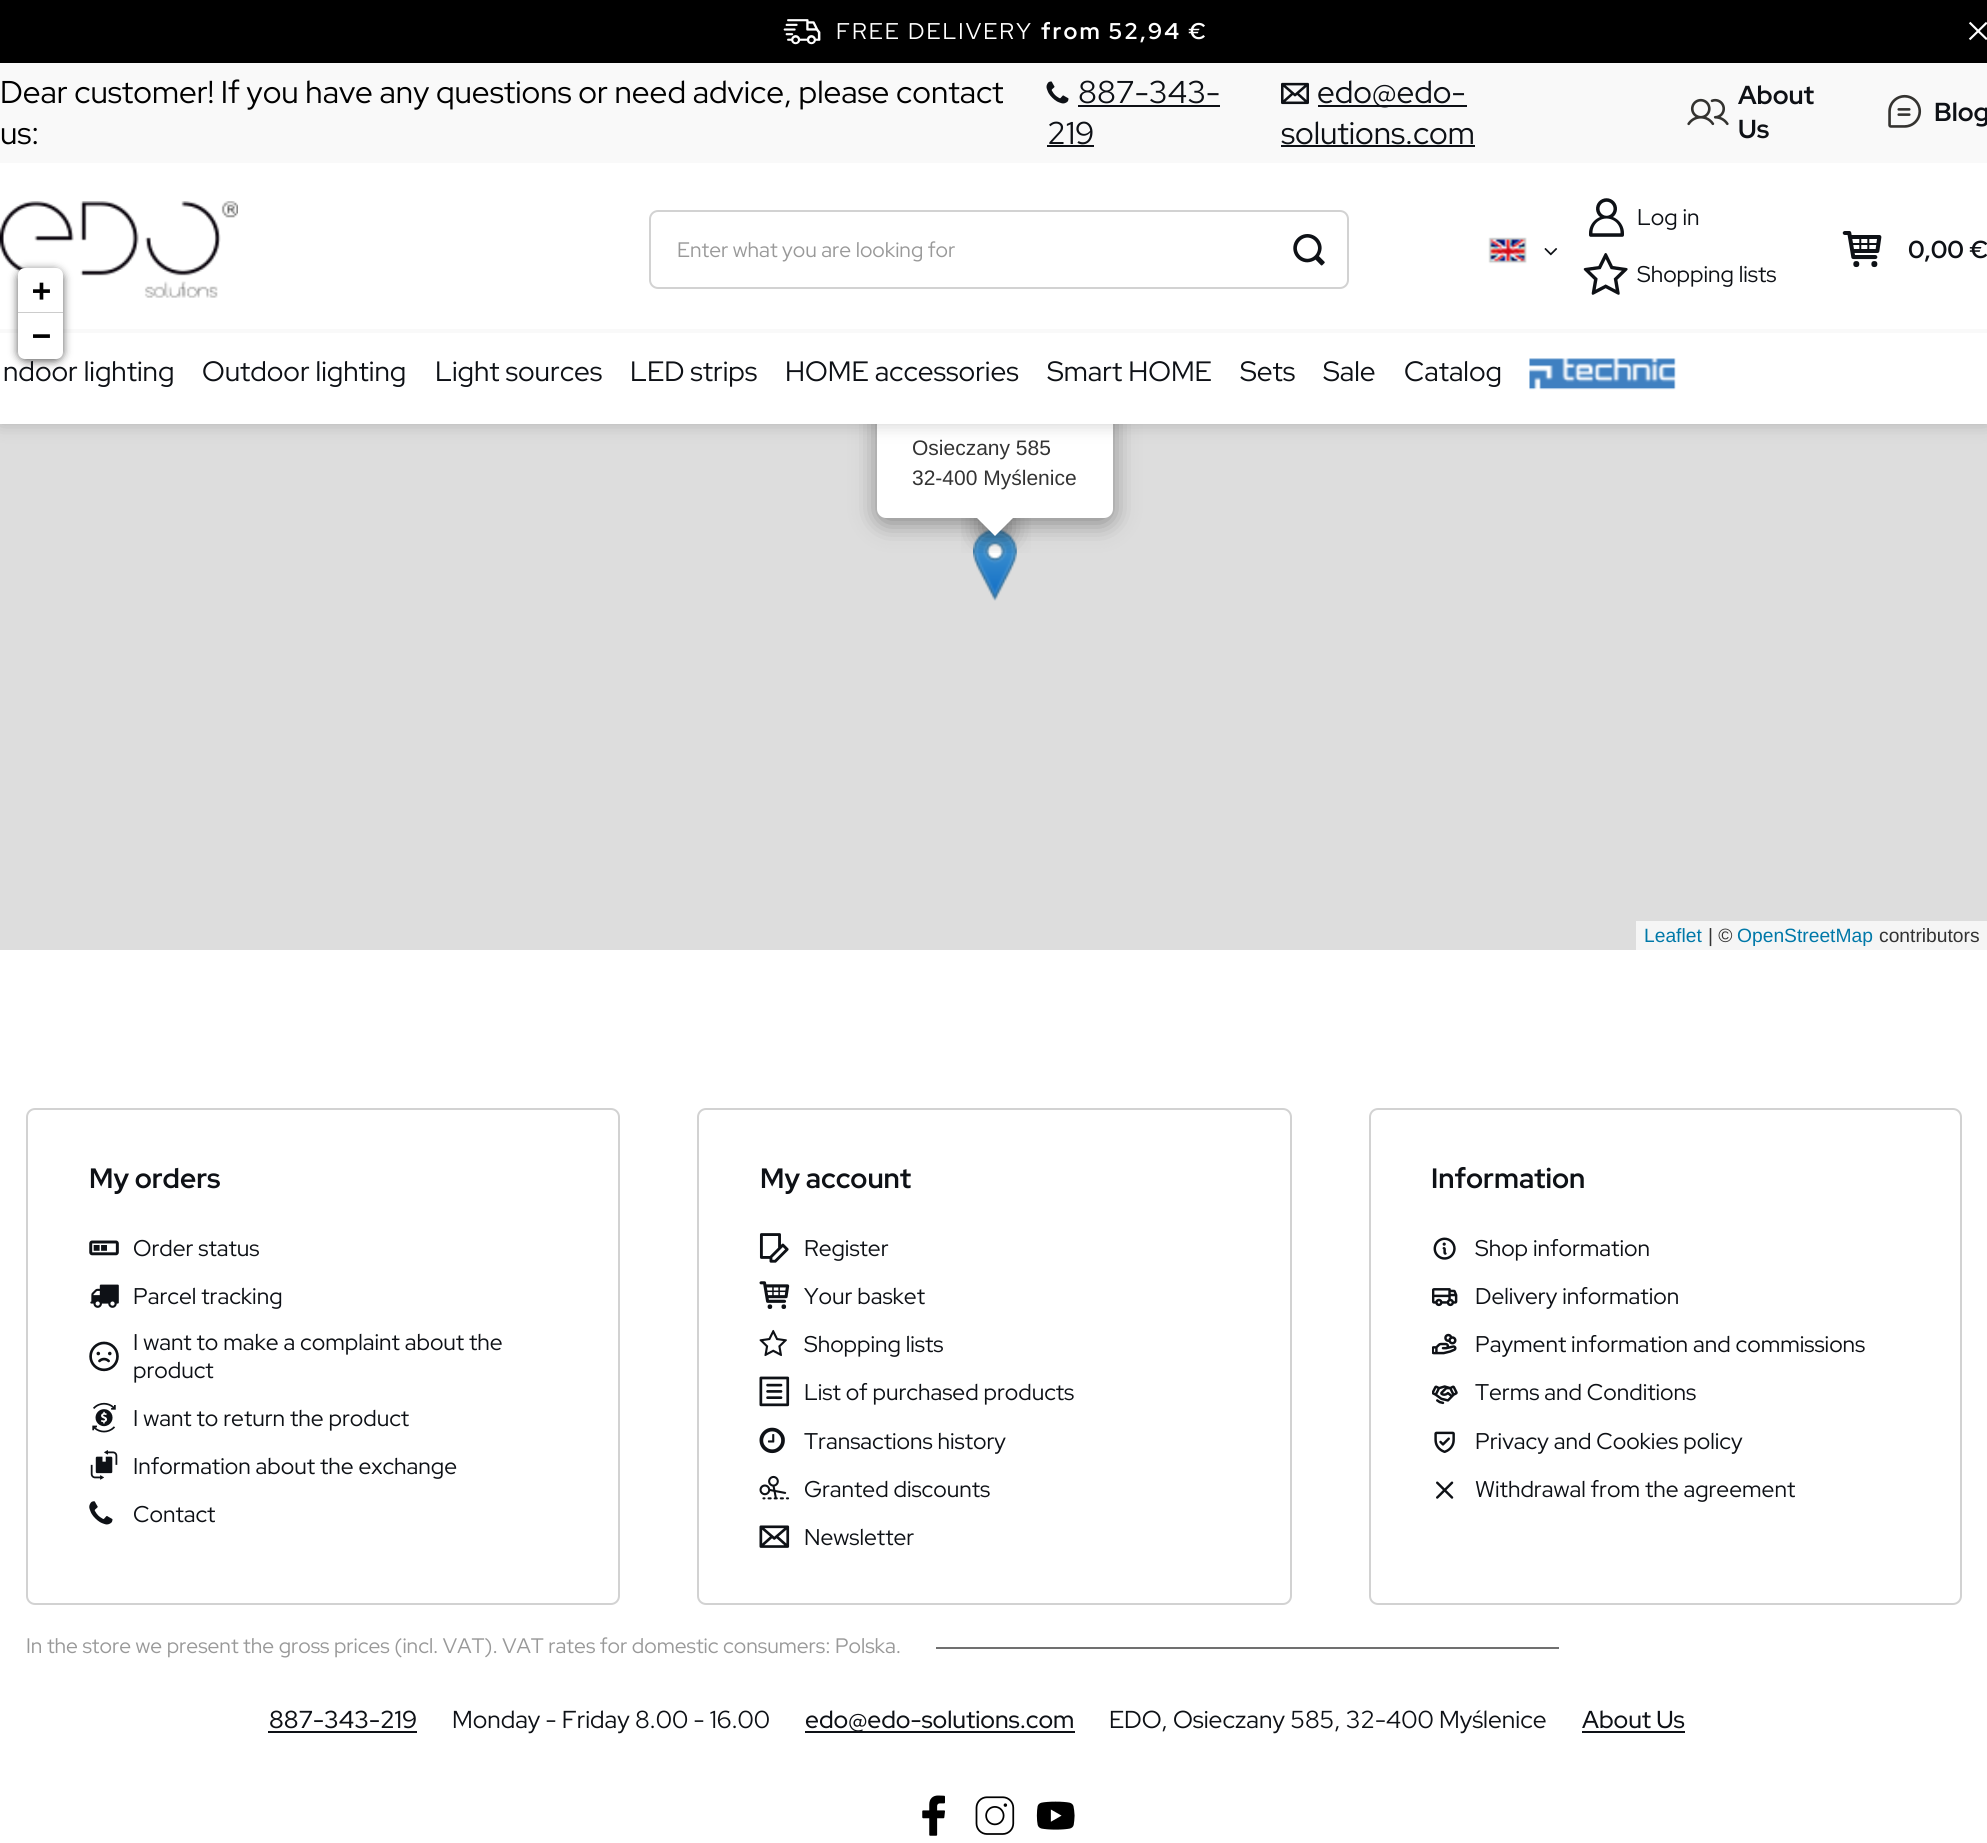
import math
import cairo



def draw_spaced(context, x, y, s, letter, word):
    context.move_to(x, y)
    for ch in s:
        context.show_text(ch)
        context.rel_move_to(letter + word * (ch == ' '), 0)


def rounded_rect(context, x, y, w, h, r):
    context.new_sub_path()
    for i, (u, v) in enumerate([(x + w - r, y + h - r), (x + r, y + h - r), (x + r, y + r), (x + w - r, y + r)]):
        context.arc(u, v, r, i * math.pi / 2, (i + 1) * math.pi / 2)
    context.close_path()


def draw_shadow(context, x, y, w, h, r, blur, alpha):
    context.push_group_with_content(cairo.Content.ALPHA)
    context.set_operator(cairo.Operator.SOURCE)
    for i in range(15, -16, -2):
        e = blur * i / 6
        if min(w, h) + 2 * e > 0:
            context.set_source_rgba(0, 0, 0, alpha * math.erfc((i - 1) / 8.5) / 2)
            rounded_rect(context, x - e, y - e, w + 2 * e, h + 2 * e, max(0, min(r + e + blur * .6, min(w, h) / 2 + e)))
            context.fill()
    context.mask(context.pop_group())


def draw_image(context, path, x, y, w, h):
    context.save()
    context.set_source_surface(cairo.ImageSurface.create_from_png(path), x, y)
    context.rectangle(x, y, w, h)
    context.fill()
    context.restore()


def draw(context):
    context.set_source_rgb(1, 1, 1)
    context.paint()
    context.set_source_rgb(221 / 255, 221 / 255, 221 / 255)
    context.rectangle(0, 424, 1987, 526)
    context.fill()
    draw_image(context, "images/15.png", 973, 529, 44, 72)
    context.set_source_rgb(0, 0, 0)
    draw_shadow(context, 877, 368, 236, 155, 9, 12, 0.4)
    context.set_source_rgb(1, 1, 1)
    rounded_rect(context, 877, 362, 236, 156, 9)
    context.fill()
    context.set_source_rgb(0, 0, 0)
    draw_shadow(context, 0, 0, 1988, 424, 0, 9, 0.2)
    context.set_source_rgb(1, 1, 1)
    context.rectangle(0, 163, 1987, 261)
    context.fill()
    context.set_source_rgb(0, 0, 0)
    context.rectangle(0, 0, 1987, 63)
    context.fill()
    draw_image(context, "images/1.png", 783, 19, 38, 26)
    draw_image(context, "images/2.png", 1968, 21, 19, 20)
    context.set_source_rgb(249 / 255, 249 / 255, 249 / 255)
    context.rectangle(0, 63, 1987, 100)
    context.fill()
    draw_image(context, "images/3.png", 1046, 81, 23, 23)
    context.set_source_rgb(14 / 255, 17 / 255, 22 / 255)
    context.rectangle(1078, 105, 142, 2)
    context.fill()
    context.rectangle(1047, 145, 47, 2)
    context.fill()
    draw_image(context, "images/4.png", 1281, 82, 28, 23)
    context.rectangle(1318, 105, 149, 2)
    context.fill()
    context.rectangle(1281, 145, 194, 2)
    context.fill()
    draw_image(context, "images/5.png", 1687, 98, 42, 28)
    draw_image(context, "images/6.png", 1888, 94, 34, 34)
    draw_image(context, "images/7.png", 0, 201, 238, 97)
    rounded_rect(context, 650, 211, 698, 77, 8)
    context.set_source_rgb(210 / 255, 210 / 255, 210 / 255)
    context.stroke()
    draw_image(context, "images/8.png", 1293, 234, 32, 32)
    draw_image(context, "images/9.png", 1488, 237, 39, 27)
    draw_image(context, "images/10.png", 1544, 248, 14, 8)
    draw_image(context, "images/11.png", 1589, 198, 35, 39)
    draw_image(context, "images/12.png", 1583, 253, 45, 42)
    draw_image(context, "images/13.png", 1842, 231, 40, 37)
    context.set_source_rgb(249 / 255, 249 / 255, 249 / 255)
    context.rectangle(0, 329, 1987, 4)
    context.fill()
    draw_image(context, "images/14.png", 1529, 358, 147, 32)
    context.set_source_rgb(0, 0, 0)
    draw_shadow(context, 18, 270, 45, 91, 9, 4.5, 0.65)
    context.set_source_rgb(1, 1, 1)
    context.new_path()
    context.move_to(25, 268)
    context.line_to(56, 268)
    context.curve_to(60, 268, 63, 271, 63, 275)
    context.line_to(63, 313)
    context.line_to(18, 313)
    context.line_to(18, 275)
    context.curve_to(18, 271, 21, 268, 25, 268)
    context.close_path()
    context.fill()
    context.set_source_rgb(204 / 255, 204 / 255, 204 / 255)
    context.rectangle(18, 312, 45, 1)
    context.fill()
    context.set_source_rgb(1, 1, 1)
    context.new_path()
    context.move_to(18, 313)
    context.line_to(63, 313)
    context.line_to(63, 352)
    context.curve_to(63, 356, 60, 359, 56, 359)
    context.line_to(25, 359)
    context.curve_to(21, 359, 18, 356, 18, 352)
    context.close_path()
    context.fill()
    context.set_source_rgb(245 / 255, 245 / 255, 245 / 255)
    context.rectangle(1636, 921, 351, 29)
    context.fill()
    context.save()
    context.rectangle(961, 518, 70, 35)
    context.clip()
    context.set_source_rgb(0, 0, 0)
    draw_shadow(context, 980, 506, 30, 30, 0, 12.5, 0.4)
    context.restore()
    context.save()
    context.rectangle(961, 518, 70, 35)
    context.clip()
    context.set_source_rgb(1, 1, 1)
    context.new_path()
    context.move_to(995, 494)
    context.line_to(1016, 515)
    context.line_to(995, 536)
    context.line_to(974, 515)
    context.close_path()
    context.fill()
    context.restore()
    rounded_rect(context, 27, 1109, 592, 495, 8)
    context.set_source_rgb(210 / 255, 210 / 255, 210 / 255)
    context.stroke()
    draw_image(context, "images/16.png", 89, 1240, 30, 16)
    draw_image(context, "images/17.png", 90, 1284, 29, 24)
    draw_image(context, "images/18.png", 89, 1341, 30, 31)
    draw_image(context, "images/19.png", 92, 1402, 24, 31)
    draw_image(context, "images/20.png", 90, 1450, 28, 30)
    draw_image(context, "images/21.png", 89, 1501, 24, 24)
    rounded_rect(context, 698, 1109, 593, 495, 8)
    context.stroke()
    draw_image(context, "images/22.png", 759, 1233, 30, 30)
    draw_image(context, "images/23.png", 759, 1281, 31, 28)
    draw_image(context, "images/24.png", 759, 1329, 28, 28)
    draw_image(context, "images/25.png", 759, 1376, 31, 31)
    draw_image(context, "images/26.png", 759, 1427, 26, 27)
    draw_image(context, "images/27.png", 759, 1475, 31, 25)
    draw_image(context, "images/28.png", 759, 1525, 31, 23)
    rounded_rect(context, 1370, 1109, 591, 495, 8)
    context.stroke()
    draw_image(context, "images/29.png", 1433, 1237, 23, 23)
    draw_image(context, "images/30.png", 1432, 1288, 26, 19)
    draw_image(context, "images/31.png", 1432, 1333, 25, 22)
    draw_image(context, "images/32.png", 1432, 1385, 26, 20)
    draw_image(context, "images/33.png", 1434, 1431, 21, 22)
    draw_image(context, "images/34.png", 1436, 1481, 18, 18)
    context.set_source_rgb(112 / 255, 112 / 255, 112 / 255)
    context.rectangle(936, 1647, 623, 2)
    context.fill()
    context.set_source_rgb(14 / 255, 17 / 255, 22 / 255)
    context.rectangle(268, 1731, 149, 2)
    context.fill()
    context.rectangle(805, 1731, 270, 2)
    context.fill()
    context.rectangle(1582, 1731, 103, 2)
    context.fill()
    draw_image(context, "images/35.png", 922, 1795, 23, 41)
    draw_image(context, "images/36.png", 975, 1796, 40, 39)
    draw_image(context, "images/37.png", 1036, 1801, 39, 29)
    context.select_font_face("Red Hat Display")
    context.set_font_size(22.75)
    context.set_source_rgb(1, 1, 1)
    draw_spaced(context, 836, 39, "FREE DELIVERY", 2.1, 0)
    context.select_font_face("Red Hat Display", cairo.FontSlant.NORMAL, cairo.FontWeight.BOLD)
    draw_spaced(context, 1041, 39, "from 52,94 €", 2.1, 0)
    context.select_font_face("Red Hat Display")
    context.set_font_size(31.5)
    context.set_source_rgb(0, 0, 0)
    context.move_to(0, 103)
    context.show_text("Dear customer! If you have any questions or need advice, please contact")
    context.move_to(0, 144)
    context.show_text("us:")
    context.set_source_rgb(14 / 255, 17 / 255, 22 / 255)
    context.move_to(1078, 103)
    context.show_text("887-343-")
    context.move_to(1047, 144)
    context.show_text("219")
    context.move_to(1317, 103)
    context.show_text("edo@edo-")
    context.move_to(1281, 144)
    context.show_text("solutions.com")
    context.select_font_face("Red Hat Display", cairo.FontSlant.NORMAL, cairo.FontWeight.BOLD)
    context.set_font_size(26)
    context.move_to(1738, 104)
    context.show_text("About")
    context.move_to(1738, 138)
    context.show_text("Us")
    context.move_to(1934, 121)
    context.show_text("Blog")
    context.select_font_face("Red Hat Display")
    context.set_font_size(21)
    context.set_source_rgb(153 / 255, 153 / 255, 153 / 255)
    context.move_to(677, 257)
    context.show_text("Enter what you are looking for")
    context.set_font_size(22.75)
    context.set_source_rgb(14 / 255, 17 / 255, 22 / 255)
    context.move_to(1637, 225)
    context.show_text("Log in")
    context.move_to(1637, 282)
    context.show_text("Shopping lists")
    context.select_font_face("Red Hat Display", cairo.FontSlant.NORMAL, cairo.FontWeight.BOLD)
    context.set_font_size(24.5)
    context.move_to(1908, 258)
    context.show_text("0,00 €")
    context.select_font_face("Red Hat Display")
    context.set_font_size(28)
    context.move_to(3, 381)
    context.show_text("ndoor lighting")
    context.move_to(202, 381)
    context.show_text("Outdoor lighting")
    context.move_to(435, 381)
    context.show_text("Light sources")
    context.move_to(630, 381)
    context.show_text("LED strips")
    context.move_to(785, 381)
    context.show_text("HOME accessories")
    context.move_to(1047, 381)
    context.show_text("Smart HOME")
    context.move_to(1240, 381)
    context.show_text("Sets")
    context.move_to(1323, 381)
    context.show_text("Sale")
    context.move_to(1404, 381)
    context.show_text("Catalog")
    context.select_font_face("DejaVu Sans Mono", cairo.FontSlant.NORMAL, cairo.FontWeight.BOLD)
    context.set_font_size(31.5)
    context.set_source_rgb(0, 0, 0)
    context.move_to(32, 301)
    context.show_text("+")
    context.move_to(32, 346)
    context.show_text("−")
    context.select_font_face("Liberation Sans")
    context.set_font_size(19.25)
    context.set_source_rgb(0, 120 / 255, 168 / 255)
    context.move_to(1644, 942)
    context.show_text("Leaflet")
    context.set_source_rgb(51 / 255, 51 / 255, 51 / 255)
    context.move_to(1708, 942)
    context.show_text("| ©")
    context.set_source_rgb(0, 120 / 255, 168 / 255)
    context.move_to(1737, 942)
    context.show_text("OpenStreetMap")
    context.set_source_rgb(51 / 255, 51 / 255, 51 / 255)
    context.move_to(1879, 942)
    context.show_text("contributors")
    context.set_font_size(21)
    context.move_to(912, 455)
    context.show_text("Osieczany 585")
    context.move_to(912, 485)
    context.show_text("32-400 Myślenice")
    context.select_font_face("Red Hat Display", cairo.FontSlant.NORMAL, cairo.FontWeight.BOLD)
    context.set_font_size(28)
    context.set_source_rgb(14 / 255, 17 / 255, 22 / 255)
    context.move_to(89, 1188)
    context.show_text("My orders")
    context.select_font_face("Red Hat Display")
    context.set_font_size(22.75)
    context.move_to(133, 1256)
    context.show_text("Order status")
    context.move_to(133, 1304)
    context.show_text("Parcel tracking")
    context.move_to(133, 1350)
    context.show_text("I want to make a complaint about the")
    context.move_to(133, 1378)
    context.show_text("product")
    context.move_to(133, 1426)
    context.show_text("I want to return the product")
    context.move_to(133, 1474)
    context.show_text("Information about the exchange")
    context.move_to(133, 1522)
    context.show_text("Contact")
    context.select_font_face("Red Hat Display", cairo.FontSlant.NORMAL, cairo.FontWeight.BOLD)
    context.set_font_size(28)
    context.move_to(760, 1188)
    context.show_text("My account")
    context.select_font_face("Red Hat Display")
    context.set_font_size(22.75)
    context.move_to(804, 1256)
    context.show_text("Register")
    context.move_to(804, 1304)
    context.show_text("Your basket")
    context.move_to(804, 1352)
    context.show_text("Shopping lists")
    context.move_to(804, 1400)
    context.show_text("List of purchased products")
    context.move_to(804, 1449)
    context.show_text("Transactions history")
    context.move_to(804, 1497)
    context.show_text("Granted discounts")
    context.move_to(804, 1545)
    context.show_text("Newsletter")
    context.select_font_face("Red Hat Display", cairo.FontSlant.NORMAL, cairo.FontWeight.BOLD)
    context.set_font_size(28)
    context.move_to(1431, 1188)
    context.show_text("Information")
    context.select_font_face("Red Hat Display")
    context.set_font_size(22.75)
    context.move_to(1475, 1256)
    context.show_text("Shop information")
    context.move_to(1475, 1304)
    context.show_text("Delivery information")
    context.move_to(1475, 1352)
    context.show_text("Payment information and commissions")
    context.move_to(1475, 1400)
    context.show_text("Terms and Conditions")
    context.move_to(1475, 1449)
    context.show_text("Privacy and Cookies policy")
    context.move_to(1475, 1497)
    context.show_text("Withdrawal from the agreement")
    context.set_font_size(21)
    context.set_source_rgb(153 / 255, 153 / 255, 153 / 255)
    context.move_to(26, 1653)
    context.show_text("In the store we present the gross prices (incl. VAT). VAT rates for domestic consumers: Polska.")
    context.select_font_face("Red Hat Display Medium")
    context.set_font_size(24.5)
    context.set_source_rgb(14 / 255, 17 / 255, 22 / 255)
    context.move_to(269, 1728)
    context.show_text("887-343-219")
    context.select_font_face("Red Hat Display")
    context.move_to(452, 1728)
    context.show_text("Monday - Friday 8.00 - 16.00")
    context.select_font_face("Red Hat Display Medium")
    context.move_to(805, 1728)
    context.show_text("edo@edo-solutions.com")
    context.select_font_face("Red Hat Display")
    context.move_to(1109, 1728)
    context.show_text("EDO, Osieczany 585, 32-400 Myślenice")
    context.select_font_face("Red Hat Display Medium")
    context.move_to(1582, 1728)
    context.show_text("About Us")


surface = cairo.ImageSurface(cairo.Format.RGB24, 1987, 1843)
context = cairo.Context(surface)
options = cairo.FontOptions()
options.set_hint_metrics(cairo.HintMetrics.OFF)
options.set_hint_style(cairo.HintStyle.NONE)
context.set_font_options(options)
context.set_miter_limit(4)
draw(context)
surface.write_to_png("out.png")
